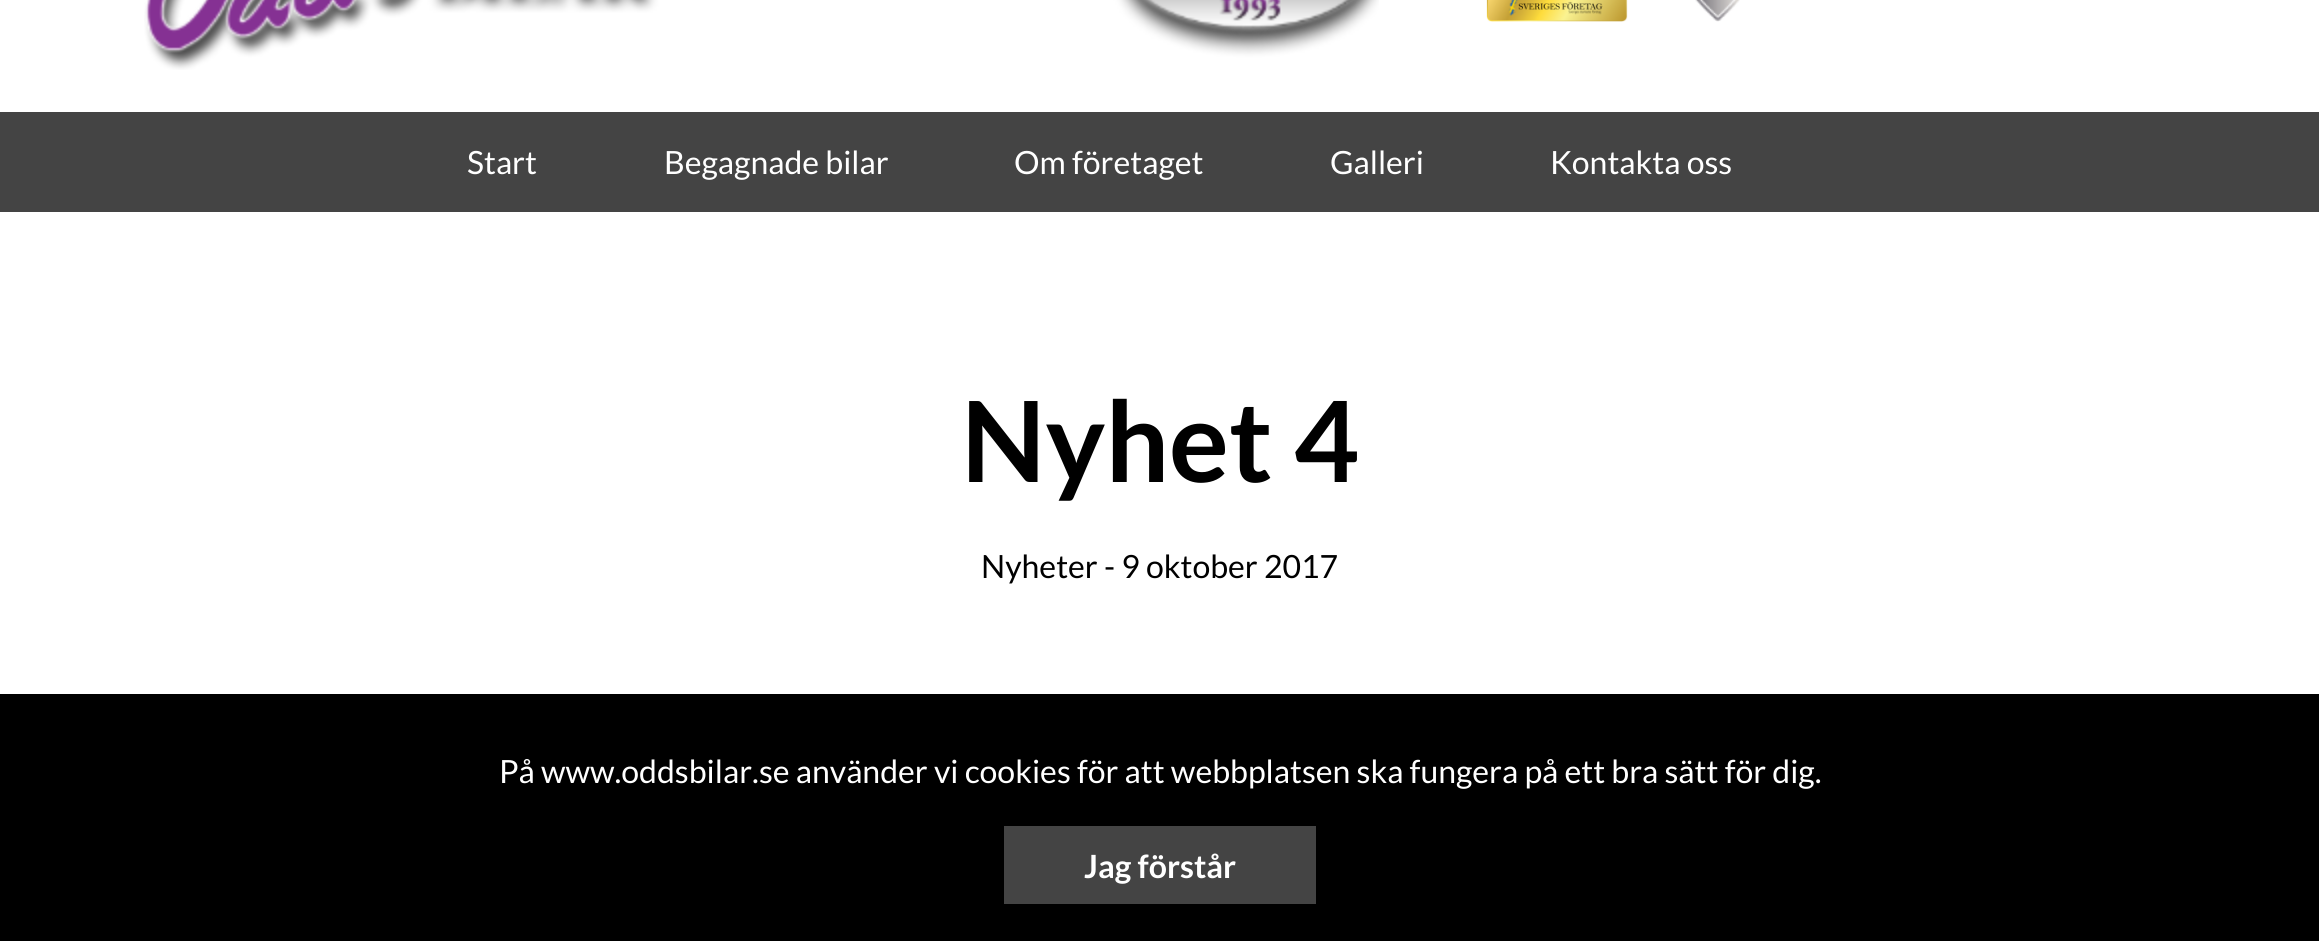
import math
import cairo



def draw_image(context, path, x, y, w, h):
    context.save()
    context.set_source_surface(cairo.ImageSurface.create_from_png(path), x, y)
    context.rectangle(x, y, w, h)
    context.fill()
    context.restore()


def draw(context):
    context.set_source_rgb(1, 1, 1)
    context.paint()
    draw_image(context, "images/1.png", 144, 0, 1235, 70)
    draw_image(context, "images/2.png", 1486, 0, 142, 22)
    draw_image(context, "images/3.png", 1695, 0, 45, 22)
    context.set_source_rgb(68 / 255, 68 / 255, 68 / 255)
    context.rectangle(0, 112, 2319, 100)
    context.fill()
    context.set_source_rgb(0, 0, 0)
    context.rectangle(0, 694, 2319, 247)
    context.fill()
    context.set_source_rgb(68 / 255, 68 / 255, 68 / 255)
    context.rectangle(1004, 826, 312, 78)
    context.fill()
    context.select_font_face("Lato")
    context.set_font_size(32)
    context.set_source_rgb(1, 1, 1)
    context.move_to(467, 174)
    context.show_text("Start")
    context.move_to(664, 174)
    context.show_text("Begagnade bilar")
    context.move_to(1014, 174)
    context.show_text("Om företaget")
    context.move_to(1330, 174)
    context.show_text("Galleri")
    context.move_to(1550, 174)
    context.show_text("Kontakta oss")
    context.select_font_face("Lato", cairo.FontSlant.NORMAL, cairo.FontWeight.BOLD)
    context.set_font_size(112)
    context.set_source_rgb(0, 0, 0)
    context.move_to(961, 482)
    context.show_text("Nyhet 4")
    context.select_font_face("Lato")
    context.set_font_size(32)
    context.move_to(981, 578)
    context.show_text("Nyheter - 9 oktober 2017")
    context.set_source_rgb(1, 1, 1)
    context.move_to(499, 783)
    context.show_text("På www.oddsbilar.se använder vi cookies för att webbplatsen ska fungera på ett bra sätt för dig.")
    context.select_font_face("Lato", cairo.FontSlant.NORMAL, cairo.FontWeight.BOLD)
    context.move_to(1084, 878)
    context.show_text("Jag förstår")


surface = cairo.ImageSurface(cairo.Format.RGB24, 2319, 941)
context = cairo.Context(surface)
options = cairo.FontOptions()
options.set_hint_metrics(cairo.HintMetrics.OFF)
options.set_hint_style(cairo.HintStyle.NONE)
context.set_font_options(options)
context.set_miter_limit(4)
draw(context)
surface.write_to_png("out.png")
